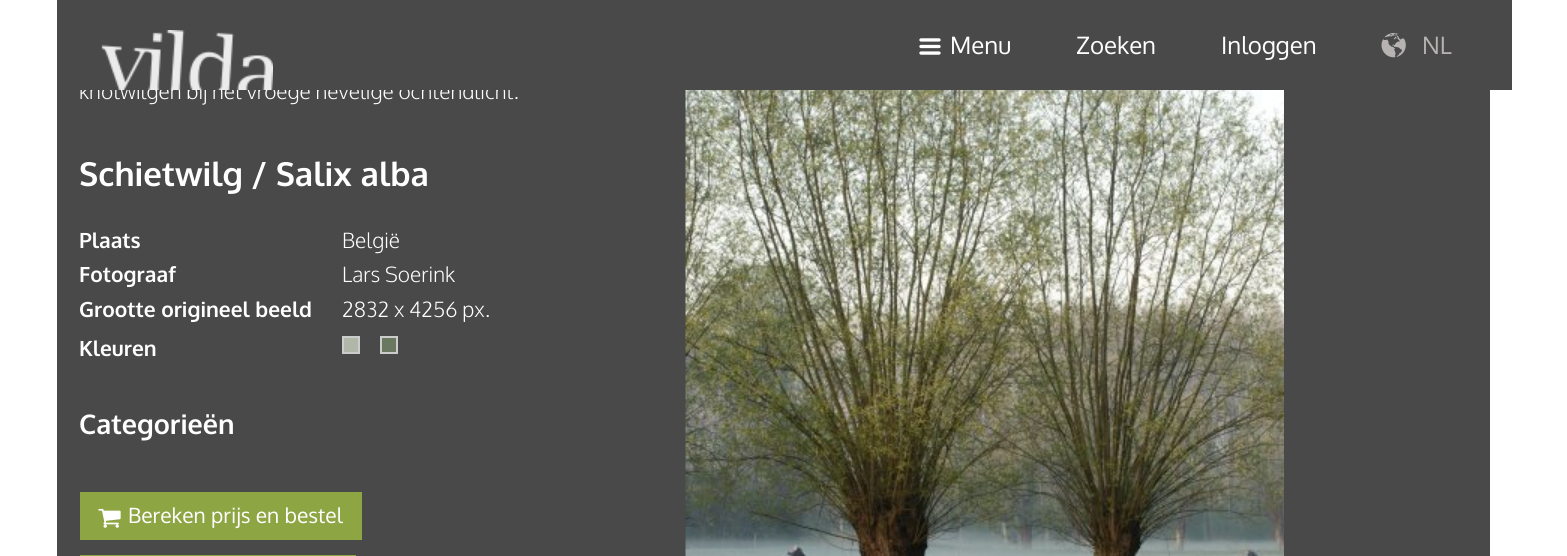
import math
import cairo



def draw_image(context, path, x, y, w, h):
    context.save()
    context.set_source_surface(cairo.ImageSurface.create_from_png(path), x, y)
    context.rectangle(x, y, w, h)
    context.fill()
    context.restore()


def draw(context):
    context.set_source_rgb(1, 1, 1)
    context.paint()
    context.set_source_rgb(73 / 255, 73 / 255, 73 / 255)
    context.rectangle(57, 90, 1433, 466)
    context.fill()
    context.set_source_rgb(176 / 255, 183 / 255, 168 / 255)
    context.rectangle(343, 337, 16, 16)
    context.fill_preserve()
    context.set_source_rgb(204 / 255, 204 / 255, 204 / 255)
    context.stroke()
    context.set_source_rgb(105 / 255, 120 / 255, 94 / 255)
    context.rectangle(381, 337, 16, 16)
    context.fill_preserve()
    context.set_source_rgb(204 / 255, 204 / 255, 204 / 255)
    context.stroke()
    context.set_source_rgb(142 / 255, 165 / 255, 68 / 255)
    context.rectangle(80, 492, 282, 48)
    context.fill()
    draw_image(context, "images/4.png", 98, 508, 23, 20)
    context.rectangle(80, 555, 276, 1)
    context.fill()
    draw_image(context, "images/5.png", 685, 90, 599, 466)
    context.select_font_face("Oxygen Light")
    context.set_font_size(21)
    context.set_source_rgb(1, 1, 1)
    context.move_to(79, 99)
    context.show_text("knotwilgen bij het vroege nevelige ochtendlicht.")
    context.set_source_rgb(73 / 255, 73 / 255, 73 / 255)
    context.rectangle(57, 0, 1455, 90)
    context.fill()
    context.select_font_face("Oxygen")
    context.set_font_size(24)
    context.set_source_rgb(183 / 255, 179 / 255, 179 / 255)
    context.move_to(1422, 54)
    context.show_text("NL")
    draw_image(context, "images/3.png", 1381, 33, 25, 25)
    context.set_source_rgb(1, 1, 1)
    context.move_to(1221, 54)
    context.show_text("Inloggen")
    context.move_to(1076, 54)
    context.show_text("Zoeken")
    context.move_to(950, 54)
    context.show_text("Menu")
    draw_image(context, "images/2.png", 919, 38, 22, 17)
    draw_image(context, "images/1.png", 101, 30, 172, 60)
    context.select_font_face("Oxygen", cairo.FontSlant.NORMAL, cairo.FontWeight.BOLD)
    context.set_font_size(33)
    context.move_to(79, 186)
    context.show_text("Schietwilg / Salix alba")
    context.set_font_size(21)
    context.move_to(79, 248)
    context.show_text("Plaats")
    context.select_font_face("Oxygen Light")
    context.move_to(342, 248)
    context.show_text("België")
    context.select_font_face("Oxygen", cairo.FontSlant.NORMAL, cairo.FontWeight.BOLD)
    context.move_to(79, 282)
    context.show_text("Fotograaf")
    context.select_font_face("Oxygen Light")
    context.move_to(342, 282)
    context.show_text("Lars Soerink")
    context.select_font_face("Oxygen", cairo.FontSlant.NORMAL, cairo.FontWeight.BOLD)
    context.move_to(79, 317)
    context.show_text("Grootte origineel beeld")
    context.select_font_face("Oxygen Light")
    context.move_to(342, 317)
    context.show_text("2832 x 4256 px.")
    context.select_font_face("Oxygen", cairo.FontSlant.NORMAL, cairo.FontWeight.BOLD)
    context.move_to(79, 356)
    context.show_text("Kleuren")
    context.set_font_size(27)
    context.move_to(79, 434)
    context.show_text("Categorieën")
    context.select_font_face("Oxygen")
    context.set_font_size(21)
    context.move_to(128, 523)
    context.show_text("Bereken prijs en bestel")


surface = cairo.ImageSurface(cairo.Format.RGB24, 1567, 556)
context = cairo.Context(surface)
options = cairo.FontOptions()
options.set_hint_metrics(cairo.HintMetrics.OFF)
options.set_hint_style(cairo.HintStyle.NONE)
context.set_font_options(options)
context.set_miter_limit(4)
draw(context)
surface.write_to_png("out.png")
